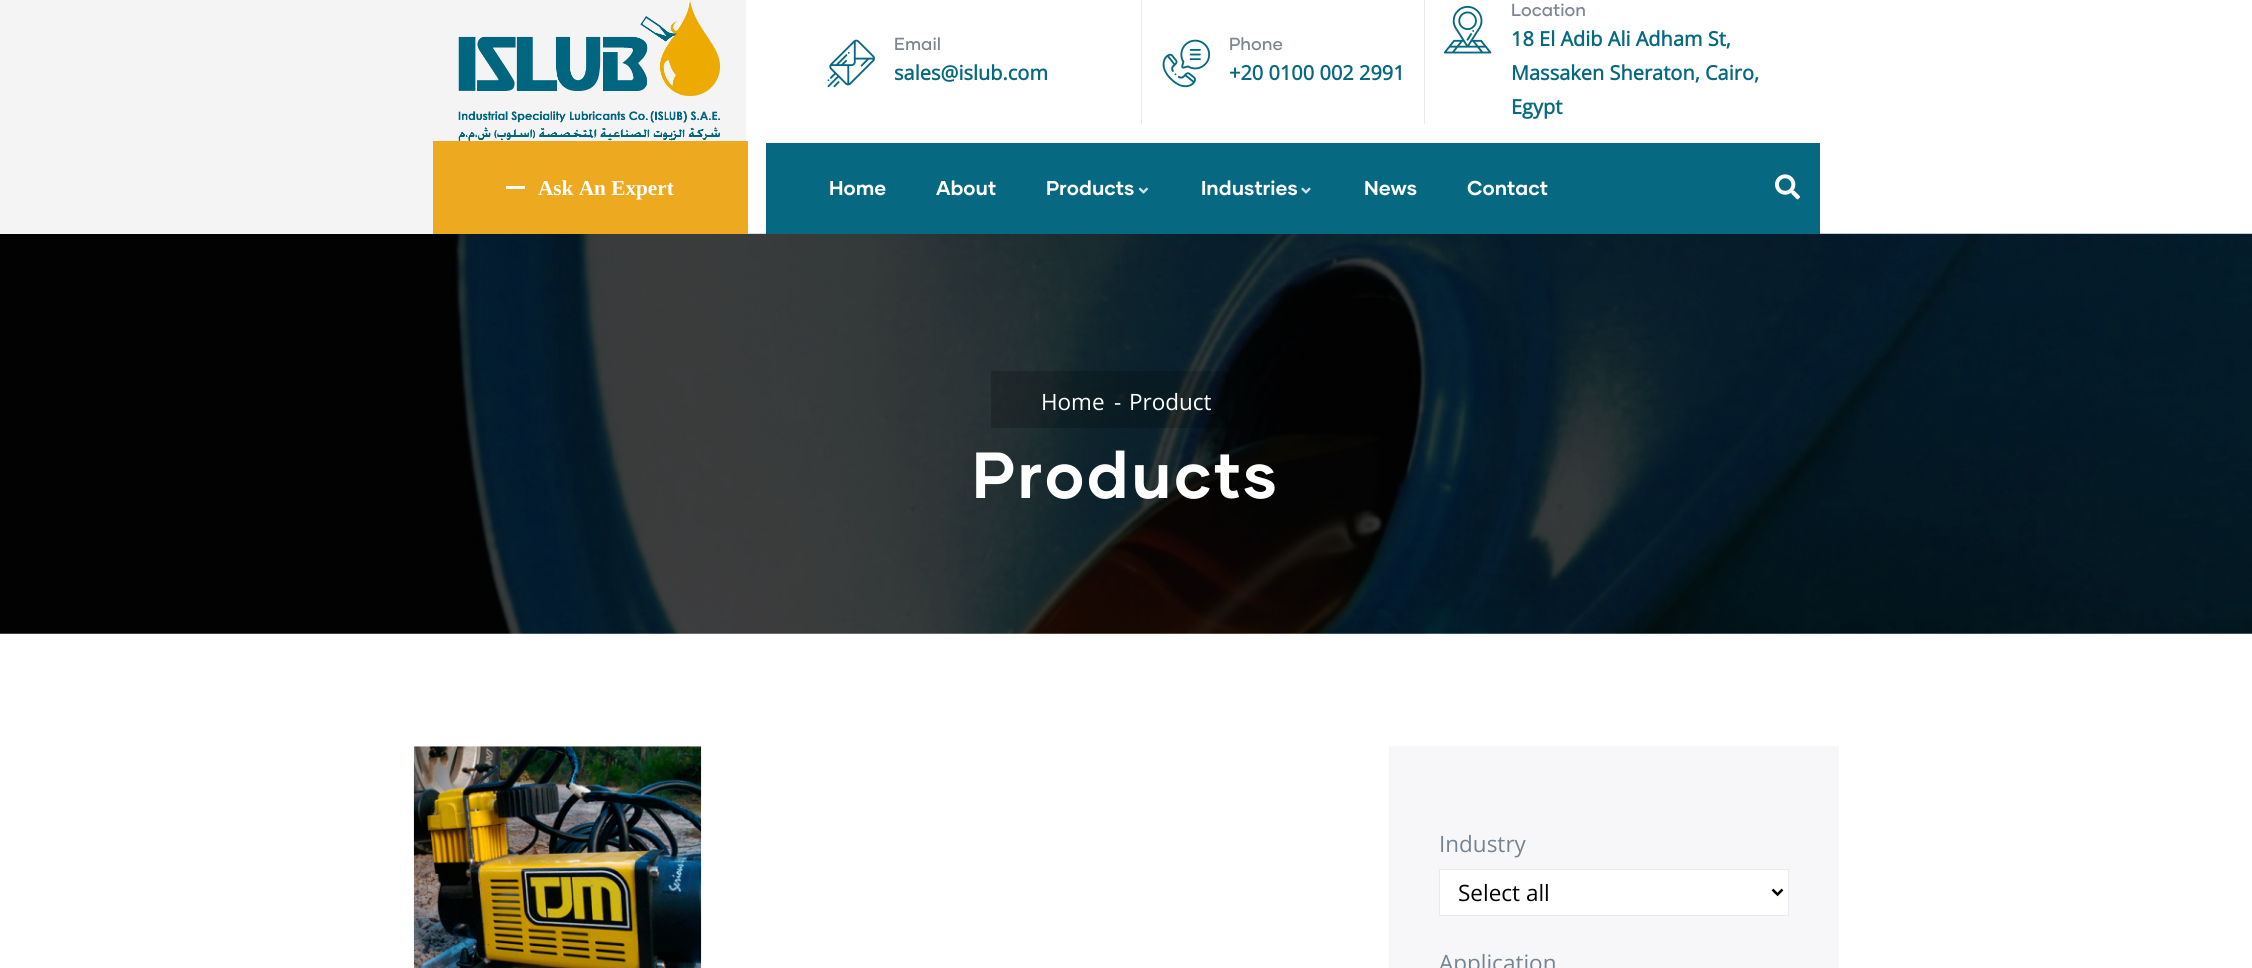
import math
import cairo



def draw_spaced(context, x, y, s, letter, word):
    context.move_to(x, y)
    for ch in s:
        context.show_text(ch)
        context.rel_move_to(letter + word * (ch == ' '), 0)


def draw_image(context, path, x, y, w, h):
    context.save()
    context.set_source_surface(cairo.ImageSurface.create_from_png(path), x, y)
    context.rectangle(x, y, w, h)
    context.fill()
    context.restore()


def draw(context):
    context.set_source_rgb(1, 1, 1)
    context.paint()
    context.set_source_rgb(244 / 255, 244 / 255, 245 / 255)
    context.rectangle(0, 0, 746, 141)
    context.fill()
    draw_image(context, "images/1.png", 458, 0, 262, 141)
    context.set_source_rgb(234 / 255, 234 / 255, 234 / 255)
    context.rectangle(1141, 0, 1, 124)
    context.fill()
    draw_image(context, "images/2.png", 827, 39, 48, 49)
    context.rectangle(1424, 0, 1, 124)
    context.fill()
    draw_image(context, "images/3.png", 1162, 39, 49, 49)
    draw_image(context, "images/4.png", 1443, 5, 49, 49)
    draw_image(context, "images/8.png", 0, 233, 2252, 401)
    context.set_source_rgb(244 / 255, 244 / 255, 245 / 255)
    context.rectangle(0, 141, 433, 93)
    context.fill()
    context.set_source_rgb(237 / 255, 169 / 255, 32 / 255)
    context.rectangle(433, 141, 315, 93)
    context.fill()
    context.set_source_rgb(1, 1, 1)
    context.rectangle(506, 186, 19, 3)
    context.fill()
    context.set_source_rgb(6 / 255, 104 / 255, 129 / 255)
    context.rectangle(766, 143, 1054, 91)
    context.fill()
    draw_image(context, "images/5.png", 1138, 187, 11, 7)
    draw_image(context, "images/6.png", 1301, 187, 10, 7)
    draw_image(context, "images/7.png", 1775, 174, 25, 26)
    context.set_source_rgba(0, 0, 0, 0.2)
    context.rectangle(991, 371, 238, 57)
    context.fill()
    draw_image(context, "images/9.png", 413, 746, 289, 222)
    context.set_source_rgb(247 / 255, 247 / 255, 249 / 255)
    context.rectangle(1389, 746, 450, 222)
    context.fill()
    context.set_source_rgb(1, 1, 1)
    context.rectangle(1439.5, 869.5, 349, 46)
    context.fill_preserve()
    context.set_source_rgb(233 / 255, 233 / 255, 238 / 255)
    context.set_line_width(1)
    context.stroke()
    context.new_path()
    context.move_to(1772.5, 889.5)
    context.line_to(1777.5, 894.5)
    context.line_to(1782.5, 889.5)
    context.set_source_rgb(0, 0, 0)
    context.set_line_width(2.5)
    context.stroke()
    context.select_font_face("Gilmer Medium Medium")
    context.set_font_size(17.5)
    context.set_source_rgb(127 / 255, 134 / 255, 146 / 255)
    context.move_to(894, 50)
    context.show_text("Email")
    context.select_font_face("Open Sans", cairo.FontSlant.NORMAL, cairo.FontWeight.BOLD)
    context.set_font_size(20)
    context.set_source_rgb(6 / 255, 104 / 255, 129 / 255)
    context.move_to(894, 80)
    context.show_text("sales@islub.com")
    context.select_font_face("Gilmer Medium Medium")
    context.set_font_size(17.5)
    context.set_source_rgb(127 / 255, 134 / 255, 146 / 255)
    context.move_to(1229, 50)
    context.show_text("Phone")
    context.select_font_face("Open Sans", cairo.FontSlant.NORMAL, cairo.FontWeight.BOLD)
    context.set_font_size(20)
    context.set_source_rgb(6 / 255, 104 / 255, 129 / 255)
    context.move_to(1229, 80)
    context.show_text("+20 0100 002 2991")
    context.select_font_face("Gilmer Medium Medium")
    context.set_font_size(17.5)
    context.set_source_rgb(127 / 255, 134 / 255, 146 / 255)
    context.move_to(1511, 16)
    context.show_text("Location")
    context.select_font_face("Open Sans", cairo.FontSlant.NORMAL, cairo.FontWeight.BOLD)
    context.set_font_size(20)
    context.set_source_rgb(6 / 255, 104 / 255, 129 / 255)
    context.move_to(1511, 46)
    context.show_text("18 El Adib Ali Adham St,")
    context.move_to(1511, 80)
    context.show_text("Massaken Sheraton, Cairo,")
    context.move_to(1511, 114)
    context.show_text("Egypt")
    context.select_font_face("Liberation Serif", cairo.FontSlant.NORMAL, cairo.FontWeight.BOLD)
    context.set_font_size(21.25)
    context.set_source_rgb(1, 1, 1)
    context.move_to(538, 195)
    context.show_text("Ask An Expert")
    context.select_font_face("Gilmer", cairo.FontSlant.NORMAL, cairo.FontWeight.BOLD)
    context.set_font_size(20)
    context.move_to(829, 195)
    context.show_text("Home")
    context.move_to(936, 195)
    context.show_text("About")
    context.move_to(1046, 195)
    context.show_text("Products")
    context.move_to(1201, 195)
    context.show_text("Industries")
    context.move_to(1364, 195)
    context.show_text("News")
    context.move_to(1467, 195)
    context.show_text("Contact")
    context.select_font_face("Open Sans")
    context.set_font_size(22.5)
    context.move_to(1041, 410)
    context.show_text("Home")
    context.move_to(1114, 410)
    context.show_text("-")
    context.move_to(1129, 410)
    context.show_text("Product")
    context.select_font_face("Gilmer", cairo.FontSlant.NORMAL, cairo.FontWeight.BOLD)
    context.set_font_size(65)
    draw_spaced(context, 972, 498, "Products", 2.5, 0)
    context.select_font_face("Open Sans")
    context.set_font_size(22.5)
    context.set_source_rgb(118 / 255, 132 / 255, 146 / 255)
    context.move_to(1439, 852)
    context.show_text("Industry")
    context.set_source_rgb(0, 0, 0)
    context.move_to(1458, 901)
    context.show_text("Select all")
    context.set_source_rgb(118 / 255, 132 / 255, 146 / 255)
    context.move_to(1439, 971)
    context.show_text("Application")


surface = cairo.ImageSurface(cairo.Format.RGB24, 2252, 968)
context = cairo.Context(surface)
options = cairo.FontOptions()
options.set_hint_metrics(cairo.HintMetrics.OFF)
options.set_hint_style(cairo.HintStyle.NONE)
context.set_font_options(options)
context.set_miter_limit(4)
draw(context)
surface.write_to_png("out.png")
